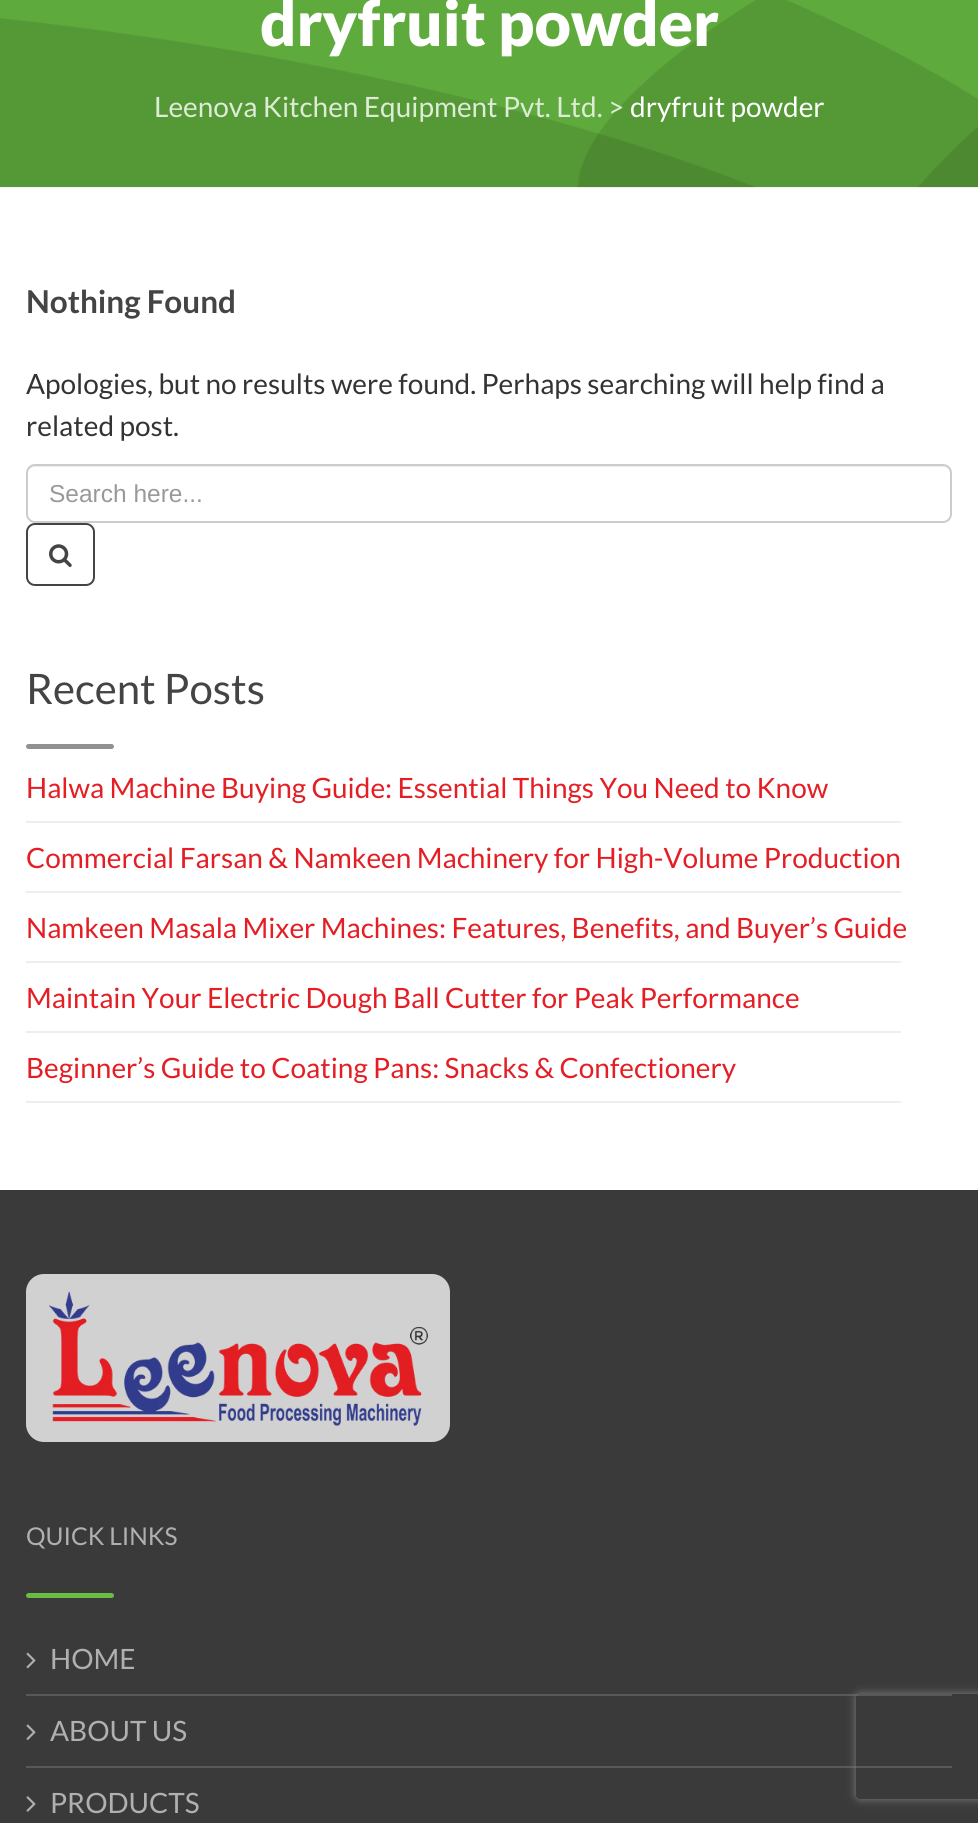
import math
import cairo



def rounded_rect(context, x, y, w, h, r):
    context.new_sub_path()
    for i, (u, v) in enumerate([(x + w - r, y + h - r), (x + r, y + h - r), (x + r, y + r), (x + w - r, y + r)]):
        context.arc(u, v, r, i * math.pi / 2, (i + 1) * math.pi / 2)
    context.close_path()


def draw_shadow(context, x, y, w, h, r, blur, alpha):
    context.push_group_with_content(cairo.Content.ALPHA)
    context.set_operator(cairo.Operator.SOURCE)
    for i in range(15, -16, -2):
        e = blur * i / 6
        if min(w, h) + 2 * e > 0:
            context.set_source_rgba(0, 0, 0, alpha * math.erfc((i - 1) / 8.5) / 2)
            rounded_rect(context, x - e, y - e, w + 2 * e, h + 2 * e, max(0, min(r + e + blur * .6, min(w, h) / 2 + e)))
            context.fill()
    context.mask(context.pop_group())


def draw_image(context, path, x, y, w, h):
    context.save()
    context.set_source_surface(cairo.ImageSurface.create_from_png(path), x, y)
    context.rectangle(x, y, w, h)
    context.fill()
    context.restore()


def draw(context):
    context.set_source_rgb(1, 1, 1)
    context.paint()
    context.set_source_rgb(105 / 255, 189 / 255, 67 / 255)
    context.rectangle(0, 0, 978, 187)
    context.fill()
    draw_image(context, "images/1.png", 0, 0, 978, 188)
    context.set_source_rgb(236 / 255, 236 / 255, 236 / 255)
    context.new_path()
    context.move_to(35, 467)
    context.line_to(943, 467)
    context.curve_to(947, 467, 950, 470, 950, 474)
    context.curve_to(950, 470, 948, 466, 943, 466)
    context.line_to(35, 466)
    context.curve_to(30, 466, 28, 470, 28, 474)
    context.curve_to(28, 470, 31, 467, 35, 467)
    context.close_path()
    context.fill()
    rounded_rect(context, 27, 465, 924, 57, 8)
    context.set_source_rgb(204 / 255, 204 / 255, 204 / 255)
    context.stroke()
    rounded_rect(context, 27, 524, 67, 61, 8)
    context.set_source_rgb(68 / 255, 68 / 255, 68 / 255)
    context.stroke()
    draw_image(context, "images/2.png", 49, 544, 23, 23)
    context.set_source_rgb(145 / 255, 145 / 255, 145 / 255)
    rounded_rect(context, 26, 744, 88, 5, 2.5)
    context.fill()
    context.set_source_rgb(238 / 255, 238 / 255, 238 / 255)
    context.rectangle(26, 821, 875, 2)
    context.fill()
    context.rectangle(26, 891, 875, 2)
    context.fill()
    context.rectangle(26, 961, 875, 2)
    context.fill()
    context.rectangle(26, 1031, 875, 2)
    context.fill()
    context.rectangle(26, 1101, 875, 2)
    context.fill()
    context.set_source_rgb(58 / 255, 58 / 255, 58 / 255)
    context.rectangle(0, 1190, 978, 633)
    context.fill()
    context.set_source_rgb(209 / 255, 209 / 255, 209 / 255)
    rounded_rect(context, 26, 1274, 424, 168, 18)
    context.fill()
    draw_image(context, "images/3.png", 49, 1291, 379, 135)
    context.set_source_rgb(105 / 255, 189 / 255, 67 / 255)
    rounded_rect(context, 26, 1593, 88, 5, 2.5)
    context.fill()
    context.set_source_rgb(88 / 255, 88 / 255, 88 / 255)
    context.rectangle(26, 1694, 926, 2)
    context.fill()
    draw_image(context, "images/4.png", 26, 1652, 10, 17)
    context.rectangle(26, 1766, 926, 2)
    context.fill()
    draw_image(context, "images/5.png", 26, 1724, 10, 16)
    draw_image(context, "images/6.png", 26, 1796, 10, 16)
    context.save()
    context.set_fill_rule(cairo.FillRule.EVEN_ODD)
    context.new_path()
    context.move_to(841, 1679)
    context.line_to(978, 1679)
    context.line_to(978, 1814)
    context.line_to(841, 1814)
    context.close_path()
    context.move_to(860, 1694)
    context.line_to(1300, 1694)
    context.curve_to(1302, 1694, 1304, 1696, 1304, 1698)
    context.line_to(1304, 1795)
    context.curve_to(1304, 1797, 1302, 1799, 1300, 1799)
    context.line_to(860, 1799)
    context.curve_to(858, 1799, 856, 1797, 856, 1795)
    context.line_to(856, 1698)
    context.curve_to(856, 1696, 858, 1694, 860, 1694)
    context.close_path()
    context.clip()
    context.set_source_rgb(128 / 255, 128 / 255, 128 / 255)
    draw_shadow(context, 856, 1694, 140, 105, 4, 4.5, 1)
    context.restore()
    context.select_font_face("Lato Black")
    context.set_font_size(63)
    context.set_source_rgb(1, 1, 1)
    context.move_to(260, 46)
    context.show_text("dryfruit powder")
    context.select_font_face("Lato")
    context.set_font_size(28)
    context.set_source_rgb(221 / 255, 235 / 255, 215 / 255)
    context.move_to(154, 117)
    context.show_text("Leenova Kitchen Equipment Pvt. Ltd.")
    context.move_to(608, 117)
    context.show_text(">")
    context.set_source_rgb(1, 1, 1)
    context.move_to(630, 117)
    context.show_text("dryfruit powder")
    context.select_font_face("Lato", cairo.FontSlant.NORMAL, cairo.FontWeight.BOLD)
    context.set_font_size(31.5)
    context.set_source_rgb(68 / 255, 68 / 255, 68 / 255)
    context.move_to(26, 313)
    context.show_text("Nothing Found")
    context.select_font_face("Lato")
    context.set_font_size(28)
    context.set_source_rgb(51 / 255, 51 / 255, 51 / 255)
    context.move_to(26, 394)
    context.show_text("Apologies, but no results were found. Perhaps searching will help find a")
    context.move_to(26, 436)
    context.show_text("related post.")
    context.select_font_face("Liberation Sans")
    context.set_font_size(24.5)
    context.set_source_rgb(153 / 255, 153 / 255, 153 / 255)
    context.move_to(49, 502)
    context.show_text("Search here...")
    context.select_font_face("Lato")
    context.set_font_size(42)
    context.set_source_rgb(68 / 255, 68 / 255, 68 / 255)
    context.move_to(26, 704)
    context.show_text("Recent Posts")
    context.set_font_size(28)
    context.set_source_rgb(227 / 255, 30 / 255, 36 / 255)
    context.move_to(26, 798)
    context.show_text("Halwa Machine Buying Guide: Essential Things You Need to Know")
    context.move_to(26, 868)
    context.show_text("Commercial Farsan & Namkeen Machinery for High-Volume Production")
    context.move_to(26, 938)
    context.show_text("Namkeen Masala Mixer Machines: Features, Benefits, and Buyer’s Guide")
    context.move_to(26, 1008)
    context.show_text("Maintain Your Electric Dough Ball Cutter for Peak Performance")
    context.move_to(26, 1078)
    context.show_text("Beginner’s Guide to Coating Pans: Snacks & Confectionery")
    context.set_font_size(24.5)
    context.set_source_rgb(176 / 255, 176 / 255, 176 / 255)
    context.move_to(26, 1545)
    context.show_text("QUICK LINKS")
    context.set_font_size(28)
    context.move_to(50, 1669)
    context.show_text("HOME")
    context.move_to(50, 1741)
    context.show_text("ABOUT US")
    context.move_to(50, 1813)
    context.show_text("PRODUCTS")


surface = cairo.ImageSurface(cairo.Format.RGB24, 978, 1823)
context = cairo.Context(surface)
options = cairo.FontOptions()
options.set_hint_metrics(cairo.HintMetrics.OFF)
options.set_hint_style(cairo.HintStyle.NONE)
context.set_font_options(options)
context.set_miter_limit(4)
draw(context)
surface.write_to_png("out.png")
